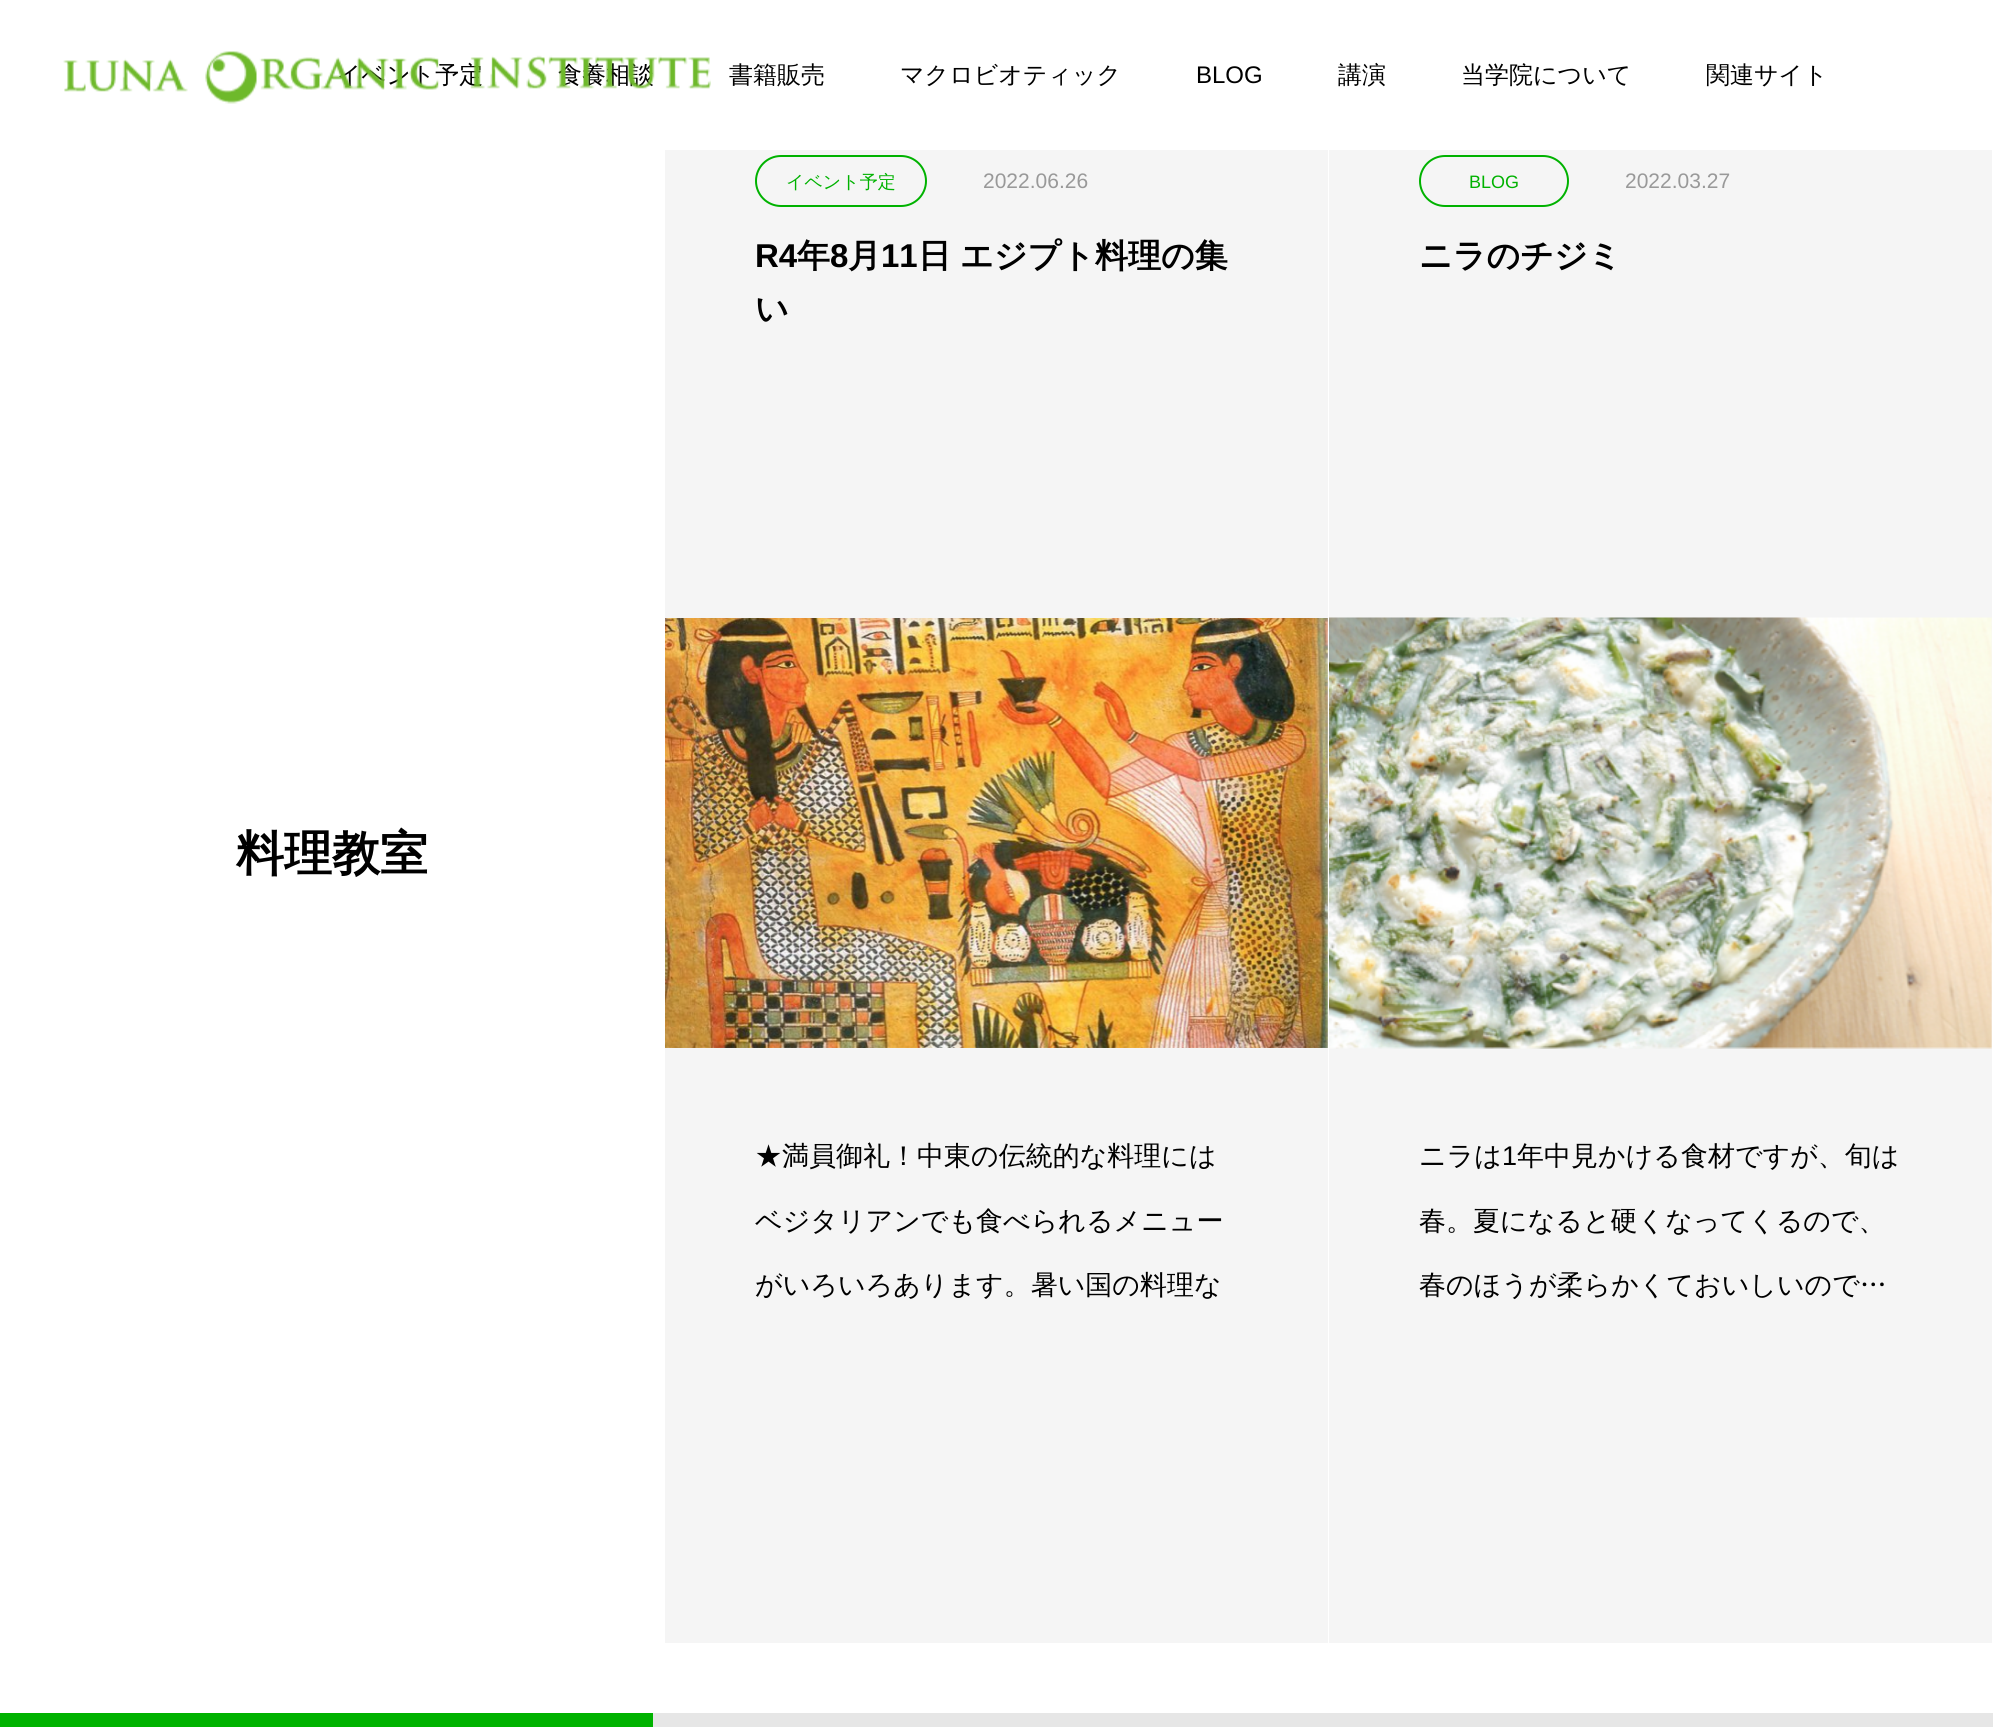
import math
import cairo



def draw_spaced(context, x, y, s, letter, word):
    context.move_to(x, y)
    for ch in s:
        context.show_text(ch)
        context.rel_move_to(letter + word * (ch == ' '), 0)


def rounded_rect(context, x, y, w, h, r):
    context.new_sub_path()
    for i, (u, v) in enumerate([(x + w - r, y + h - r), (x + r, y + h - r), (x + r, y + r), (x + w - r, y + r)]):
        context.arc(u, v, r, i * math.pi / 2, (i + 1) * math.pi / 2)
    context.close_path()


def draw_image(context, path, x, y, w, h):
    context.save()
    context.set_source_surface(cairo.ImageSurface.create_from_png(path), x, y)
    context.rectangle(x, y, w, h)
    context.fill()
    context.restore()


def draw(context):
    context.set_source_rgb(1, 1, 1)
    context.paint()
    context.set_source_rgb(245 / 255, 245 / 255, 245 / 255)
    context.rectangle(665, 150, 663, 1493)
    context.fill()
    rounded_rect(context, 756, 156, 170, 50, 25)
    context.set_source_rgb(0, 178 / 255, 0)
    context.stroke()
    draw_image(context, "images/2.png", 665, 618, 663, 430)
    context.set_source_rgb(245 / 255, 245 / 255, 245 / 255)
    context.rectangle(1329, 150, 663, 1493)
    context.fill()
    rounded_rect(context, 1420, 156, 148, 50, 25)
    context.set_source_rgb(0, 178 / 255, 0)
    context.stroke()
    draw_image(context, "images/3.png", 1329, 617, 663, 432)
    context.set_source_rgb(230 / 255, 230 / 255, 230 / 255)
    context.rectangle(653, 1713, 1340, 14)
    context.fill()
    context.set_source_rgb(0, 178 / 255, 0)
    context.rectangle(0, 1713, 653, 14)
    context.fill()
    context.select_font_face("WenQuanYi Zen Hei Medium")
    context.set_font_size(24)
    context.set_source_rgb(0, 0, 0)
    context.move_to(337, 83)
    context.show_text("イベント予定")
    context.move_to(558, 83)
    context.show_text("食養相談")
    draw_image(context, "images/1.png", 63, 51, 648, 53)
    context.move_to(729, 83)
    context.show_text("書籍販売")
    context.move_to(900, 83)
    context.show_text("マクロビオティック")
    context.select_font_face("Liberation Sans")
    context.move_to(1196, 83)
    context.show_text("BLOG")
    context.select_font_face("WenQuanYi Zen Hei Medium")
    context.move_to(1338, 83)
    context.show_text("講演")
    context.move_to(1461, 83)
    context.show_text("当学院について")
    context.move_to(1706, 83)
    context.show_text("関連サイト")
    context.select_font_face("WenQuanYi Zen Hei", cairo.FontSlant.NORMAL, cairo.FontWeight.BOLD)
    context.set_font_size(48)
    context.move_to(236, 870)
    context.show_text("料理教室")
    context.select_font_face("WenQuanYi Zen Hei Medium")
    context.set_font_size(18)
    context.set_source_rgb(0, 178 / 255, 0)
    context.move_to(786, 188)
    context.show_text("イベント予定")
    context.select_font_face("Liberation Sans")
    context.set_font_size(21)
    context.set_source_rgb(153 / 255, 153 / 255, 153 / 255)
    context.move_to(983, 188)
    context.show_text("2022.06.26")
    context.select_font_face("Liberation Sans", cairo.FontSlant.NORMAL, cairo.FontWeight.BOLD)
    context.set_font_size(33)
    context.set_source_rgb(0, 0, 0)
    context.move_to(755, 267)
    context.show_text("R4")
    context.select_font_face("WenQuanYi Zen Hei", cairo.FontSlant.NORMAL, cairo.FontWeight.BOLD)
    context.move_to(797, 267)
    context.show_text("年")
    context.select_font_face("Liberation Sans", cairo.FontSlant.NORMAL, cairo.FontWeight.BOLD)
    context.move_to(830, 267)
    context.show_text("8")
    context.select_font_face("WenQuanYi Zen Hei", cairo.FontSlant.NORMAL, cairo.FontWeight.BOLD)
    context.move_to(848, 267)
    context.show_text("月")
    context.select_font_face("Liberation Sans", cairo.FontSlant.NORMAL, cairo.FontWeight.BOLD)
    context.move_to(881, 267)
    context.show_text("11")
    context.select_font_face("WenQuanYi Zen Hei", cairo.FontSlant.NORMAL, cairo.FontWeight.BOLD)
    draw_spaced(context, 918, 267, "日 エジプト料理の集", 0, -1)
    context.move_to(755, 320)
    context.show_text("い")
    context.select_font_face("WenQuanYi Zen Hei Medium")
    context.set_font_size(27)
    context.move_to(755, 1165)
    context.show_text("★満員御礼！中東の伝統的な料理には")
    context.move_to(755, 1230)
    context.show_text("ベジタリアンでも食べられるメニュー")
    context.move_to(755, 1294)
    context.show_text("がいろいろあります。暑い国の料理な")
    context.select_font_face("Liberation Sans")
    context.set_font_size(18)
    context.set_source_rgb(0, 178 / 255, 0)
    context.move_to(1469, 188)
    context.show_text("BLOG")
    context.set_font_size(21)
    context.set_source_rgb(153 / 255, 153 / 255, 153 / 255)
    context.move_to(1625, 188)
    context.show_text("2022.03.27")
    context.select_font_face("WenQuanYi Zen Hei", cairo.FontSlant.NORMAL, cairo.FontWeight.BOLD)
    context.set_font_size(33)
    context.set_source_rgb(0, 0, 0)
    context.move_to(1419, 267)
    context.show_text("ニラのチジミ")
    context.select_font_face("WenQuanYi Zen Hei Medium")
    context.set_font_size(27)
    context.move_to(1419, 1165)
    context.show_text("ニラは")
    context.select_font_face("Liberation Sans")
    context.move_to(1502, 1165)
    context.show_text("1")
    context.select_font_face("WenQuanYi Zen Hei Medium")
    context.move_to(1517, 1165)
    context.show_text("年中見かける食材ですが、旬は")
    context.move_to(1419, 1230)
    context.show_text("春。夏になると硬くなってくるので、")
    context.move_to(1419, 1294)
    context.show_text("春のほうが柔らかくておいしいので…")


surface = cairo.ImageSurface(cairo.Format.RGB24, 1993, 1727)
context = cairo.Context(surface)
options = cairo.FontOptions()
options.set_hint_metrics(cairo.HintMetrics.OFF)
options.set_hint_style(cairo.HintStyle.NONE)
context.set_font_options(options)
context.set_miter_limit(4)
draw(context)
surface.write_to_png("out.png")
